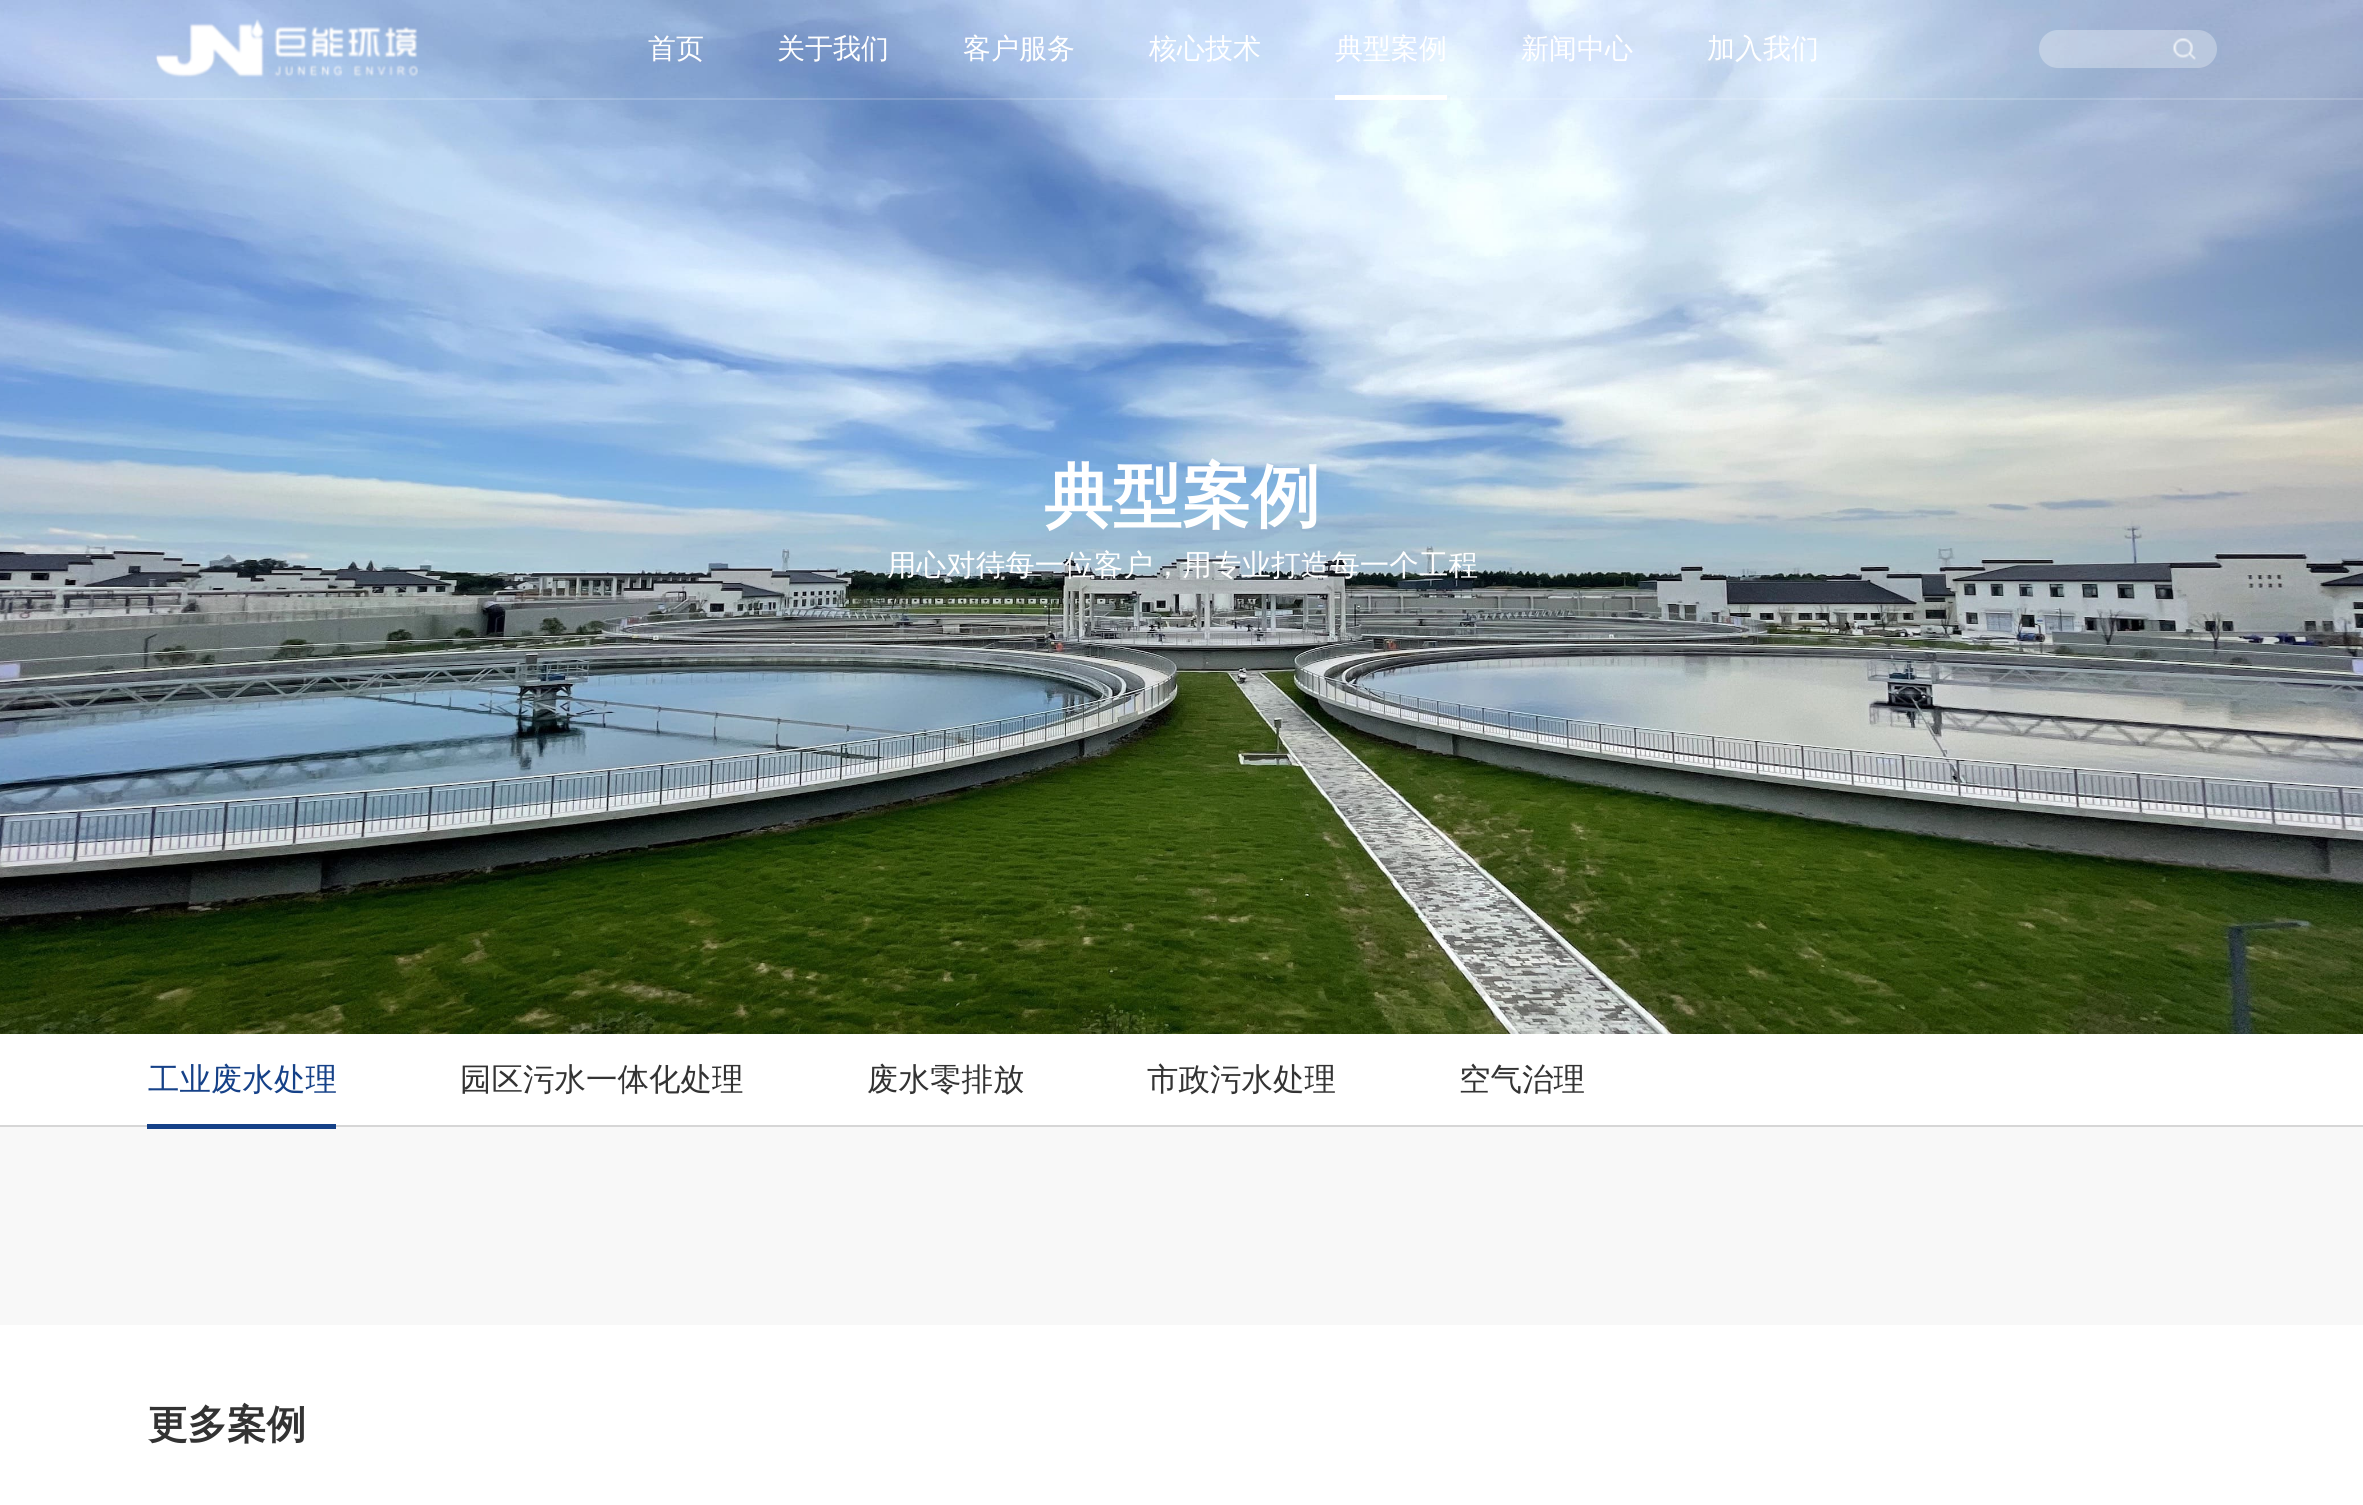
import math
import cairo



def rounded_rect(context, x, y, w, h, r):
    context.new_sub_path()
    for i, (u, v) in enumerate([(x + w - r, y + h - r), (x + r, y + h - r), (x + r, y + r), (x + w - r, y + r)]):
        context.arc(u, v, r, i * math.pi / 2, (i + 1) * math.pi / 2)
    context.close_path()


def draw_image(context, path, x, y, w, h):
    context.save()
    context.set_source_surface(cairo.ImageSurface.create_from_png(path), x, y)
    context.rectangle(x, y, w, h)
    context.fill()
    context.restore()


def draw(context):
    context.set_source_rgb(1, 1, 1)
    context.paint()
    draw_image(context, "images/3.png", 0, 0, 2363, 1034)
    context.set_source_rgba(1, 1, 1, 0.16)
    context.rectangle(0, 98, 2363, 2)
    context.fill()
    draw_image(context, "images/1.png", 155, 19, 263, 58)
    context.set_source_rgb(1, 1, 1)
    context.rectangle(1335, 95, 112, 5)
    context.fill()
    context.set_source_rgba(1, 1, 1, 0.3)
    rounded_rect(context, 2039, 30, 178, 38, 19)
    context.fill()
    draw_image(context, "images/2.png", 2173, 38, 23, 22)
    context.set_source_rgb(214 / 255, 214 / 255, 214 / 255)
    context.rectangle(0, 1125, 2363, 2)
    context.fill()
    context.set_source_rgb(248 / 255, 248 / 255, 248 / 255)
    context.rectangle(0, 1127, 2363, 198)
    context.fill()
    context.set_source_rgb(21 / 255, 65 / 255, 136 / 255)
    context.rectangle(147, 1124, 189, 5)
    context.fill()
    context.select_font_face("WenQuanYi Zen Hei Medium")
    context.set_font_size(28)
    context.set_source_rgb(1, 1, 1)
    context.move_to(648, 58)
    context.show_text("首页")
    context.move_to(777, 58)
    context.show_text("关于我们")
    context.move_to(963, 58)
    context.show_text("客户服务")
    context.move_to(1149, 58)
    context.show_text("核心技术")
    context.move_to(1335, 58)
    context.show_text("典型案例")
    context.move_to(1521, 58)
    context.show_text("新闻中心")
    context.move_to(1707, 58)
    context.show_text("加入我们")
    context.select_font_face("WenQuanYi Zen Hei", cairo.FontSlant.NORMAL, cairo.FontWeight.BOLD)
    context.set_font_size(69)
    context.move_to(1044, 520)
    context.show_text("典型案例")
    context.select_font_face("WenQuanYi Zen Hei Medium")
    context.set_font_size(29.55)
    context.move_to(887, 575)
    context.show_text("用心对待每一位客户，用专业打造每一个工程")
    context.set_font_size(31.5)
    context.set_source_rgb(21 / 255, 65 / 255, 136 / 255)
    context.move_to(148, 1090)
    context.show_text("工业废水处理")
    context.set_source_rgb(51 / 255, 51 / 255, 51 / 255)
    context.move_to(460, 1090)
    context.show_text("园区污水一体化处理")
    context.move_to(867, 1090)
    context.show_text("废水零排放")
    context.move_to(1147, 1090)
    context.show_text("市政污水处理")
    context.move_to(1459, 1090)
    context.show_text("空气治理")
    context.select_font_face("WenQuanYi Zen Hei", cairo.FontSlant.NORMAL, cairo.FontWeight.BOLD)
    context.set_font_size(39.5)
    context.move_to(148, 1438)
    context.show_text("更多案例")


surface = cairo.ImageSurface(cairo.Format.RGB24, 2363, 1505)
context = cairo.Context(surface)
options = cairo.FontOptions()
options.set_hint_metrics(cairo.HintMetrics.OFF)
options.set_hint_style(cairo.HintStyle.NONE)
context.set_font_options(options)
context.set_miter_limit(4)
draw(context)
surface.write_to_png("out.png")
